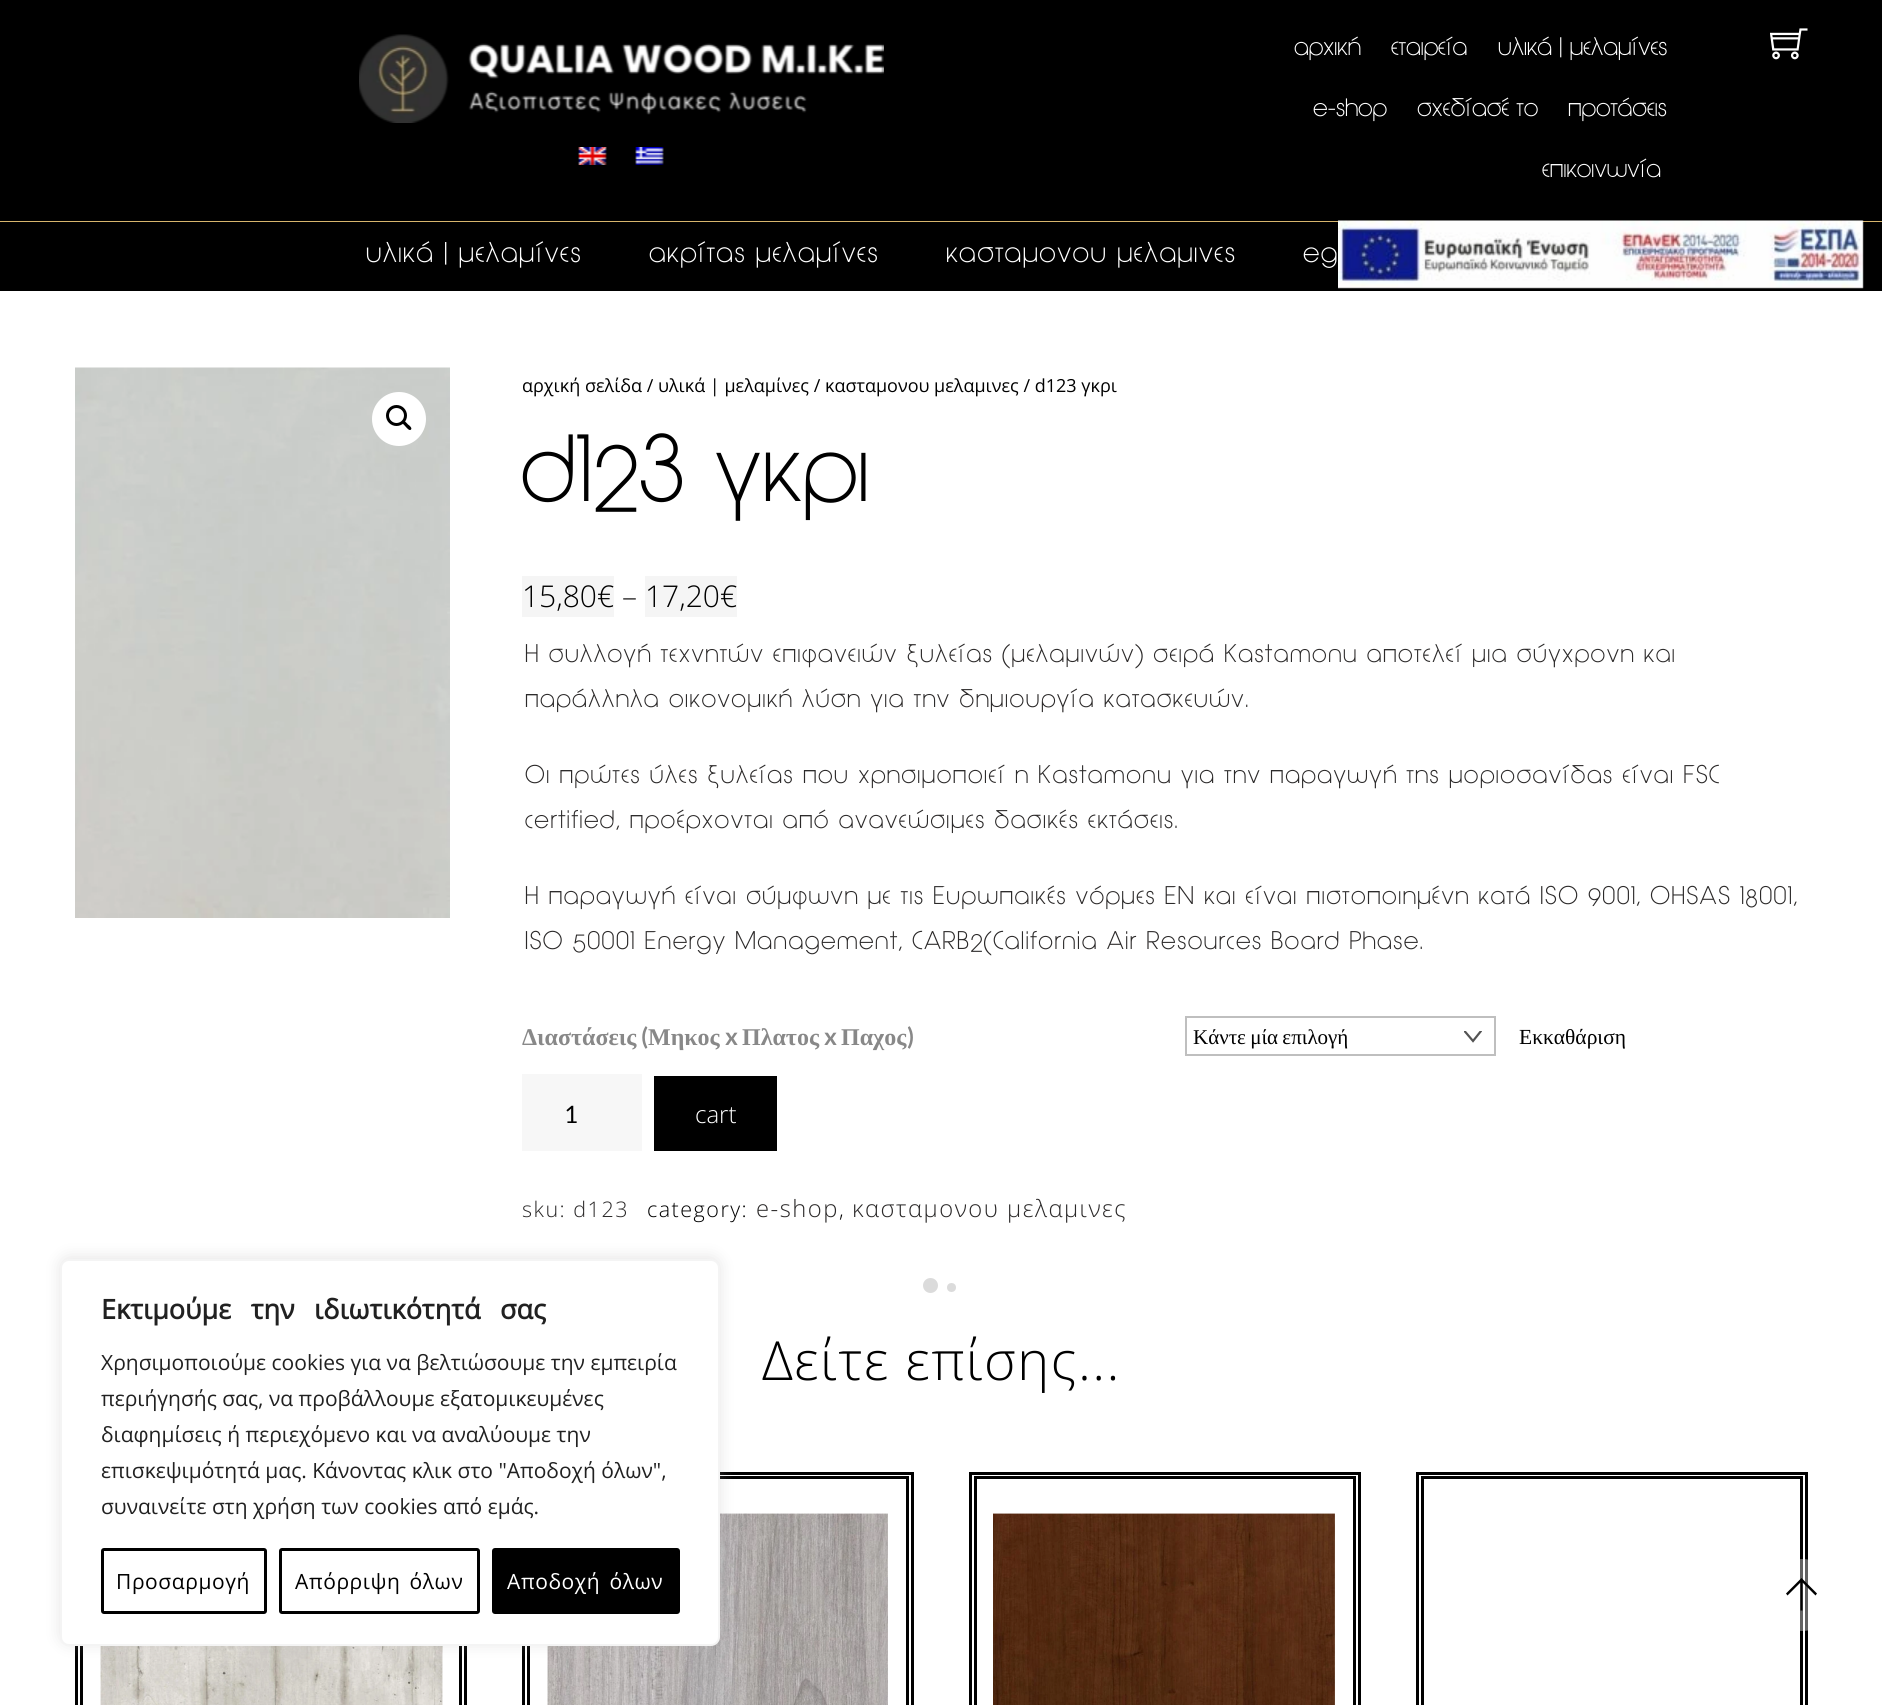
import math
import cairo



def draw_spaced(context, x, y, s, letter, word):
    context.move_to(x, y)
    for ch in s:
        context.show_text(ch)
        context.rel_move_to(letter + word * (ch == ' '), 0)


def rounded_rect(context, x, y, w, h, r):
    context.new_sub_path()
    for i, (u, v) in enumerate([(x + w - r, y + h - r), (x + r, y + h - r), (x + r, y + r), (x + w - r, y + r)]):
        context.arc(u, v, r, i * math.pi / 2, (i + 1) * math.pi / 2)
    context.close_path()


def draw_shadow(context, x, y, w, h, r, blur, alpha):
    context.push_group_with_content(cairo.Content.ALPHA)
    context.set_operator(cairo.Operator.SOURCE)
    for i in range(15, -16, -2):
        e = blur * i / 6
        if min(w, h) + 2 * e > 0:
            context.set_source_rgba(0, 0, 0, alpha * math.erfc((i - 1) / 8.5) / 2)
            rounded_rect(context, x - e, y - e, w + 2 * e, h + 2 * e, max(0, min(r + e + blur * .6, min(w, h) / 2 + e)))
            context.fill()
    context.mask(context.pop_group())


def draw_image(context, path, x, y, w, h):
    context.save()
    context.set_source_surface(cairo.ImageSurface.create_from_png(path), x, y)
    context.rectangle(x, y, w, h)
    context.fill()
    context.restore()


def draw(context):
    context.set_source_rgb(1, 1, 1)
    context.paint()
    context.set_source_rgb(0, 0, 0)
    context.rectangle(0, 0, 1882, 221)
    context.fill()
    draw_image(context, "images/1.png", 359, 34, 525, 89)
    draw_image(context, "images/2.png", 578, 147, 29, 18)
    draw_image(context, "images/3.png", 635, 147, 29, 18)
    draw_image(context, "images/4.png", 1770, 28, 38, 32)
    context.set_source_rgb(215 / 255, 181 / 255, 109 / 255)
    context.rectangle(0, 221, 1882, 1)
    context.fill()
    context.set_source_rgb(0, 0, 0)
    context.rectangle(0, 222, 1882, 69)
    context.fill()
    draw_image(context, "images/5.png", 1338, 220, 526, 69)
    draw_image(context, "images/6.png", 75, 367, 375, 551)
    context.set_source_rgb(1, 1, 1)
    context.arc(399, 419, 27, 0, 2 * math.pi)
    context.fill()
    context.arc(396.5, 415.5, 9, 0, 2 * math.pi)
    context.set_source_rgb(0, 0, 0)
    context.set_line_width(3)
    context.stroke()
    context.new_path()
    context.move_to(402.5, 421)
    context.curve_to(404, 419.5, 407, 423.5, 408, 424.5)
    context.curve_to(409, 425, 412.5, 428, 411, 429.5)
    context.curve_to(409.5, 431.5, 406.5, 427.5, 405.5, 426.5)
    context.curve_to(405, 425.5, 401, 423, 402.5, 421)
    context.close_path()
    context.fill()
    context.set_source_rgb(245 / 255, 245 / 255, 245 / 255)
    context.rectangle(522, 576, 92, 41)
    context.fill()
    context.rectangle(645, 576, 92, 41)
    context.fill()
    context.save()
    context.rectangle(1464, 1031, 18, 18)
    context.clip()
    context.new_path()
    context.move_to(1464.5, 1031)
    context.line_to(1473, 1041)
    context.line_to(1481, 1031)
    context.set_source_rgb(83 / 255, 83 / 255, 83 / 255)
    context.set_line_width(2.2)
    context.set_line_cap(cairo.LineCap.ROUND)
    context.stroke()
    context.restore()
    context.rectangle(1186, 1017, 309, 38)
    context.set_source_rgb(191 / 255, 191 / 255, 191 / 255)
    context.set_line_width(2)
    context.stroke()
    context.set_source_rgb(247 / 255, 247 / 255, 247 / 255)
    context.rectangle(522, 1074, 120, 77)
    context.fill()
    context.set_source_rgb(0, 0, 0)
    context.rectangle(654, 1076, 123, 75)
    context.fill()
    context.set_source_rgb(219 / 255, 219 / 255, 219 / 255)
    context.arc(930.5, 1285.5, 7.5, 0, 2 * math.pi)
    context.fill()
    context.arc(951.5, 1287.5, 4.5, 0, 2 * math.pi)
    context.fill()
    context.rectangle(76.5, 1473.5, 389, 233)
    context.set_source_rgb(0, 0, 0)
    context.set_line_width(3)
    context.stroke()
    context.rectangle(81.5, 1477.5, 379, 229)
    context.stroke()
    draw_image(context, "images/7.png", 100, 1646, 343, 59)
    context.rectangle(523.5, 1473.5, 389, 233)
    context.stroke()
    context.rectangle(528.5, 1477.5, 379, 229)
    context.stroke()
    draw_image(context, "images/8.png", 547, 1513, 341, 192)
    context.rectangle(970.5, 1473.5, 389, 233)
    context.stroke()
    context.rectangle(975.5, 1477.5, 379, 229)
    context.stroke()
    draw_image(context, "images/9.png", 993, 1513, 342, 192)
    context.rectangle(1417.5, 1473.5, 389, 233)
    context.stroke()
    context.rectangle(1422.5, 1477.5, 379, 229)
    context.stroke()
    context.set_source_rgba(1, 1, 1, 0.39)
    context.arc(1802, 1595, 36, 0, 2 * math.pi)
    context.fill()
    context.set_source_rgb(0, 0, 0)
    context.new_path()
    context.move_to(1815.5, 1595.5)
    context.line_to(1817, 1593.5)
    context.line_to(1801.5, 1578)
    context.line_to(1786, 1593.5)
    context.line_to(1787.5, 1595.5)
    context.line_to(1800.5, 1582.5)
    context.line_to(1800.5, 1610.5)
    context.line_to(1802.5, 1610.5)
    context.line_to(1802.5, 1582.5)
    context.close_path()
    context.fill()
    context.set_source_rgb(172 / 255, 171 / 255, 171 / 255)
    draw_shadow(context, 60, 1257, 660, 387, 9, 7.5, 0.3)
    context.set_source_rgb(1, 1, 1)
    rounded_rect(context, 61, 1260, 658, 385, 8)
    context.fill_preserve()
    context.set_source_rgb(244 / 255, 244 / 255, 244 / 255)
    context.set_line_width(2)
    context.stroke()
    rounded_rect(context, 102.5, 1549.5, 163, 63, 1.5)
    context.set_source_rgb(0, 0, 0)
    context.set_line_width(3)
    context.stroke()
    rounded_rect(context, 280.5, 1549.5, 198, 63, 1.5)
    context.stroke()
    rounded_rect(context, 493.5, 1549.5, 185, 63, 1.5)
    context.fill_preserve()
    context.stroke()
    context.select_font_face("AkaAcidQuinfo")
    context.set_font_size(24)
    context.set_source_rgb(1, 1, 1)
    context.move_to(1294, 55)
    context.show_text("αρχική")
    context.move_to(1391, 55)
    context.show_text("εταιρεία")
    context.move_to(1498, 55)
    context.show_text("υλικά | μελαμίνες")
    context.move_to(1313, 116)
    context.show_text("e-shop")
    context.move_to(1417, 116)
    context.show_text("σχεδίασέ το")
    context.move_to(1568, 116)
    context.show_text("προτάσεις")
    context.move_to(1542, 177)
    context.show_text("επικοινωνία")
    context.set_font_size(27)
    draw_spaced(context, 366, 262, "υλικά | μελαμίνες", 1.5, 0)
    draw_spaced(context, 649, 262, "ακρίτας μελαμίνες", 1.5, 0)
    draw_spaced(context, 946, 262, "κασταμονου μελαμινες", 1.5, 0)
    draw_spaced(context, 1303, 262, "eg", 1.5, 0)
    context.select_font_face("Open Sans")
    context.set_font_size(18)
    context.set_source_rgb(0, 0, 0)
    context.move_to(522, 392)
    context.show_text("αρχική σελίδα / υλικά | μελαμίνες / κασταμονου μελαμινες / d123 γκρι")
    context.select_font_face("AkaAcidQuinfo")
    context.set_font_size(90)
    draw_spaced(context, 522, 501, "d123 γκρι", 1.5, 0)
    context.select_font_face("Open Sans Light")
    context.set_font_size(30)
    context.move_to(522, 607)
    context.show_text("15,80€")
    context.set_source_rgb(43 / 255, 41 / 255, 41 / 255)
    context.move_to(622, 607)
    context.show_text("–")
    context.set_source_rgb(0, 0, 0)
    context.move_to(645, 607)
    context.show_text("17,20€")
    context.select_font_face("AkaAcidQuinfo")
    context.set_font_size(24)
    context.set_source_rgb(43 / 255, 41 / 255, 41 / 255)
    draw_spaced(context, 525, 662, "Η συλλογή τεχνητών επιφανειών ξυλείας (μελαμινών) σειρά Kastamonu αποτελεί μια σύγχρονη και", 1.5, 0)
    draw_spaced(context, 525, 707, "παράλληλα οικονομική λύση για την δημιουργία κατασκευών.", 1.5, 0)
    draw_spaced(context, 525, 783, "Οι πρώτες ύλες ξυλείας που χρησιμοποιεί η Kastamonu για την παραγωγή της μοριοσανίδας είναι FSC", 1.5, 0)
    draw_spaced(context, 525, 828, "certified, προέρχονται από ανανεώσιμες δασικές εκτάσεις.", 1.5, 0)
    draw_spaced(context, 525, 904, "Η παραγωγή είναι σύμφωνη με τις Ευρωπαικές νόρμες EN και είναι πιστοποιημένη κατά ISO 9001, OHSAS 18001,", 1.5, 0)
    draw_spaced(context, 525, 949, "ISO 50001 Energy Management, CARB2(California Air Resources Board Phase.", 1.5, 0)
    context.select_font_face("Liberation Serif", cairo.FontSlant.NORMAL, cairo.FontWeight.BOLD)
    context.set_source_rgb(136 / 255, 136 / 255, 136 / 255)
    context.move_to(522, 1045)
    context.show_text("Διαστάσεις")
    context.select_font_face("Lato", cairo.FontSlant.NORMAL, cairo.FontWeight.BOLD)
    context.move_to(641, 1045)
    context.show_text("(")
    context.select_font_face("Liberation Serif", cairo.FontSlant.NORMAL, cairo.FontWeight.BOLD)
    context.move_to(648, 1045)
    context.show_text("Μηκος")
    context.select_font_face("Lato", cairo.FontSlant.NORMAL, cairo.FontWeight.BOLD)
    context.move_to(725, 1045)
    context.show_text("x")
    context.select_font_face("Liberation Serif", cairo.FontSlant.NORMAL, cairo.FontWeight.BOLD)
    context.move_to(742, 1045)
    context.show_text("Πλατος")
    context.select_font_face("Lato", cairo.FontSlant.NORMAL, cairo.FontWeight.BOLD)
    context.move_to(824, 1045)
    context.show_text("x")
    context.select_font_face("Liberation Serif", cairo.FontSlant.NORMAL, cairo.FontWeight.BOLD)
    context.move_to(841, 1045)
    context.show_text("Παχος")
    context.select_font_face("Lato", cairo.FontSlant.NORMAL, cairo.FontWeight.BOLD)
    context.move_to(907, 1045)
    context.show_text(")")
    context.select_font_face("Liberation Serif")
    context.set_font_size(21)
    context.set_source_rgb(0, 0, 0)
    draw_spaced(context, 1193, 1044, "Κάντε μία επιλογή", 0, -1)
    context.set_font_size(21.5)
    context.move_to(1519, 1044)
    context.show_text("Εκκαθάριση")
    context.select_font_face("Lato")
    context.set_font_size(24)
    context.move_to(564, 1123)
    context.show_text("1")
    context.select_font_face("Open Sans Light")
    context.set_source_rgb(1, 1, 1)
    context.move_to(695, 1123)
    context.show_text("cart")
    context.set_font_size(21.5)
    context.set_source_rgb(43 / 255, 41 / 255, 41 / 255)
    draw_spaced(context, 522, 1217, "sku: d123", 1.5, 0)
    context.set_source_rgb(0, 0, 0)
    draw_spaced(context, 647, 1217, "category:", 1.5, 0)
    context.set_font_size(23.75)
    context.set_source_rgb(43 / 255, 41 / 255, 41 / 255)
    draw_spaced(context, 756, 1217, "e-shop", 1.5, 0)
    context.set_font_size(21.5)
    context.set_source_rgb(0, 0, 0)
    draw_spaced(context, 839, 1217, ",", 1.5, 0)
    context.set_font_size(23.75)
    context.set_source_rgb(43 / 255, 41 / 255, 41 / 255)
    draw_spaced(context, 852, 1217, "κασταμονου μελαμινες", 1.5, 0)
    context.set_font_size(54)
    context.set_source_rgb(0, 0, 0)
    draw_spaced(context, 762, 1380, "Δείτε επίσης...", 1.5, 0)
    context.select_font_face("Open Sans", cairo.FontSlant.NORMAL, cairo.FontWeight.BOLD)
    context.set_font_size(27)
    context.set_source_rgb(33 / 255, 33 / 255, 33 / 255)
    draw_spaced(context, 101, 1319, "Εκτιμούμε την ιδιωτικότητά σας", 0, 12.5)
    context.select_font_face("Open Sans")
    context.set_font_size(21)
    context.move_to(101, 1370)
    context.show_text("Χρησιμοποιούμε cookies για να βελτιώσουμε την εμπειρία")
    context.move_to(101, 1406)
    context.show_text("περιήγησής σας, να προβάλλουμε εξατομικευμένες")
    context.move_to(101, 1442)
    context.show_text("διαφημίσεις ή περιεχόμενο και να αναλύουμε την")
    context.move_to(101, 1478)
    context.show_text("επισκεψιμότητά μας. Κάνοντας κλικ στο \"Αποδοχή όλων\",")
    context.move_to(101, 1514)
    context.show_text("συναινείτε στη χρήση των cookies από εμάς.")
    context.set_source_rgb(0, 0, 0)
    draw_spaced(context, 116, 1589, "Προσαρμογή", 0.6, 0)
    draw_spaced(context, 295, 1589, "Απόρριψη όλων", 0.6, 3)
    context.set_source_rgb(1, 1, 1)
    draw_spaced(context, 507, 1589, "Αποδοχή όλων", 0.6, 3)


surface = cairo.ImageSurface(cairo.Format.RGB24, 1882, 1705)
context = cairo.Context(surface)
options = cairo.FontOptions()
options.set_hint_metrics(cairo.HintMetrics.OFF)
options.set_hint_style(cairo.HintStyle.NONE)
context.set_font_options(options)
context.set_miter_limit(4)
draw(context)
surface.write_to_png("out.png")
